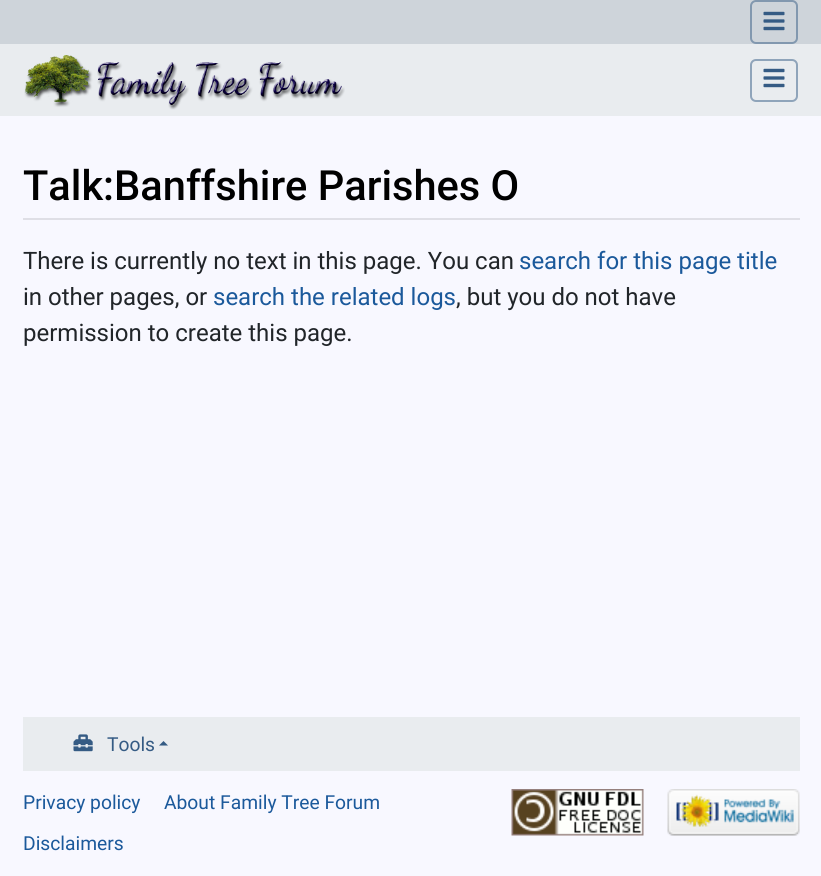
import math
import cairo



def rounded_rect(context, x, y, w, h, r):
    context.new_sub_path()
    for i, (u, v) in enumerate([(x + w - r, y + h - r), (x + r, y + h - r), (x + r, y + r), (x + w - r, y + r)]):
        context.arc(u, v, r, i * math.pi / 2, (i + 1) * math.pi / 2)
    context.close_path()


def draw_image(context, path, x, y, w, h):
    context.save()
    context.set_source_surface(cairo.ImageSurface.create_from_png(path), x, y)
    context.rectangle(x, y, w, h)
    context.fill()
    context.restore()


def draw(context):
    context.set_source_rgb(248 / 255, 248 / 255, 1)
    context.paint()
    context.set_source_rgb(206 / 255, 212 / 255, 218 / 255)
    context.rectangle(0, 0, 821, 44)
    context.fill()
    rounded_rect(context, 751, 1, 46, 42, 5)
    context.set_source_rgb(130 / 255, 152 / 255, 175 / 255)
    context.stroke()
    draw_image(context, "images/1.png", 763, 11, 22, 20)
    context.set_source_rgb(233 / 255, 236 / 255, 239 / 255)
    context.rectangle(0, 44, 821, 72)
    context.fill()
    draw_image(context, "images/2.png", 24, 55, 321, 55)
    rounded_rect(context, 751, 60, 46, 41, 5)
    context.set_source_rgb(143 / 255, 164 / 255, 186 / 255)
    context.stroke()
    draw_image(context, "images/3.png", 763, 68, 22, 20)
    context.set_source_rgb(223 / 255, 223 / 255, 230 / 255)
    context.rectangle(23, 218, 777, 2)
    context.fill()
    context.set_source_rgb(233 / 255, 236 / 255, 239 / 255)
    context.rectangle(23, 717, 777, 54)
    context.fill()
    draw_image(context, "images/4.png", 73, 734, 20, 18)
    context.set_source_rgb(53 / 255, 91 / 255, 132 / 255)
    context.new_path()
    context.move_to(168, 745.5)
    context.line_to(159, 745.5)
    context.line_to(163.5, 741)
    context.close_path()
    context.fill()
    draw_image(context, "images/5.png", 511, 789, 133, 47)
    draw_image(context, "images/6.png", 667, 789, 133, 47)
    context.select_font_face("Roboto Medium")
    context.set_font_size(41.6)
    context.set_source_rgb(0, 0, 0)
    context.move_to(23, 200)
    context.show_text("Talk:Banffshire Parishes O")
    context.select_font_face("Roboto")
    context.set_font_size(24)
    context.set_source_rgb(33 / 255, 37 / 255, 41 / 255)
    context.move_to(23, 269)
    context.show_text("There is currently no text in this page. You can")
    context.set_source_rgb(27 / 255, 89 / 255, 155 / 255)
    context.move_to(519, 269)
    context.show_text("search for this page title")
    context.set_source_rgb(33 / 255, 37 / 255, 41 / 255)
    context.move_to(23, 305)
    context.show_text("in other pages, or")
    context.set_source_rgb(27 / 255, 89 / 255, 155 / 255)
    context.move_to(213, 305)
    context.show_text("search the related logs")
    context.set_source_rgb(33 / 255, 37 / 255, 41 / 255)
    context.move_to(456, 305)
    context.show_text(", but you do not have")
    context.move_to(23, 341)
    context.show_text("permission to create this page.")
    context.set_font_size(19.25)
    context.set_source_rgb(53 / 255, 91 / 255, 132 / 255)
    context.move_to(107, 751)
    context.show_text("Tools")
    context.set_source_rgb(27 / 255, 89 / 255, 155 / 255)
    context.move_to(23, 809)
    context.show_text("Privacy policy")
    context.move_to(164, 809)
    context.show_text("About Family Tree Forum")
    context.move_to(23, 850)
    context.show_text("Disclaimers")


surface = cairo.ImageSurface(cairo.Format.RGB24, 821, 876)
context = cairo.Context(surface)
options = cairo.FontOptions()
options.set_hint_metrics(cairo.HintMetrics.OFF)
options.set_hint_style(cairo.HintStyle.NONE)
context.set_font_options(options)
context.set_miter_limit(4)
draw(context)
surface.write_to_png("out.png")
